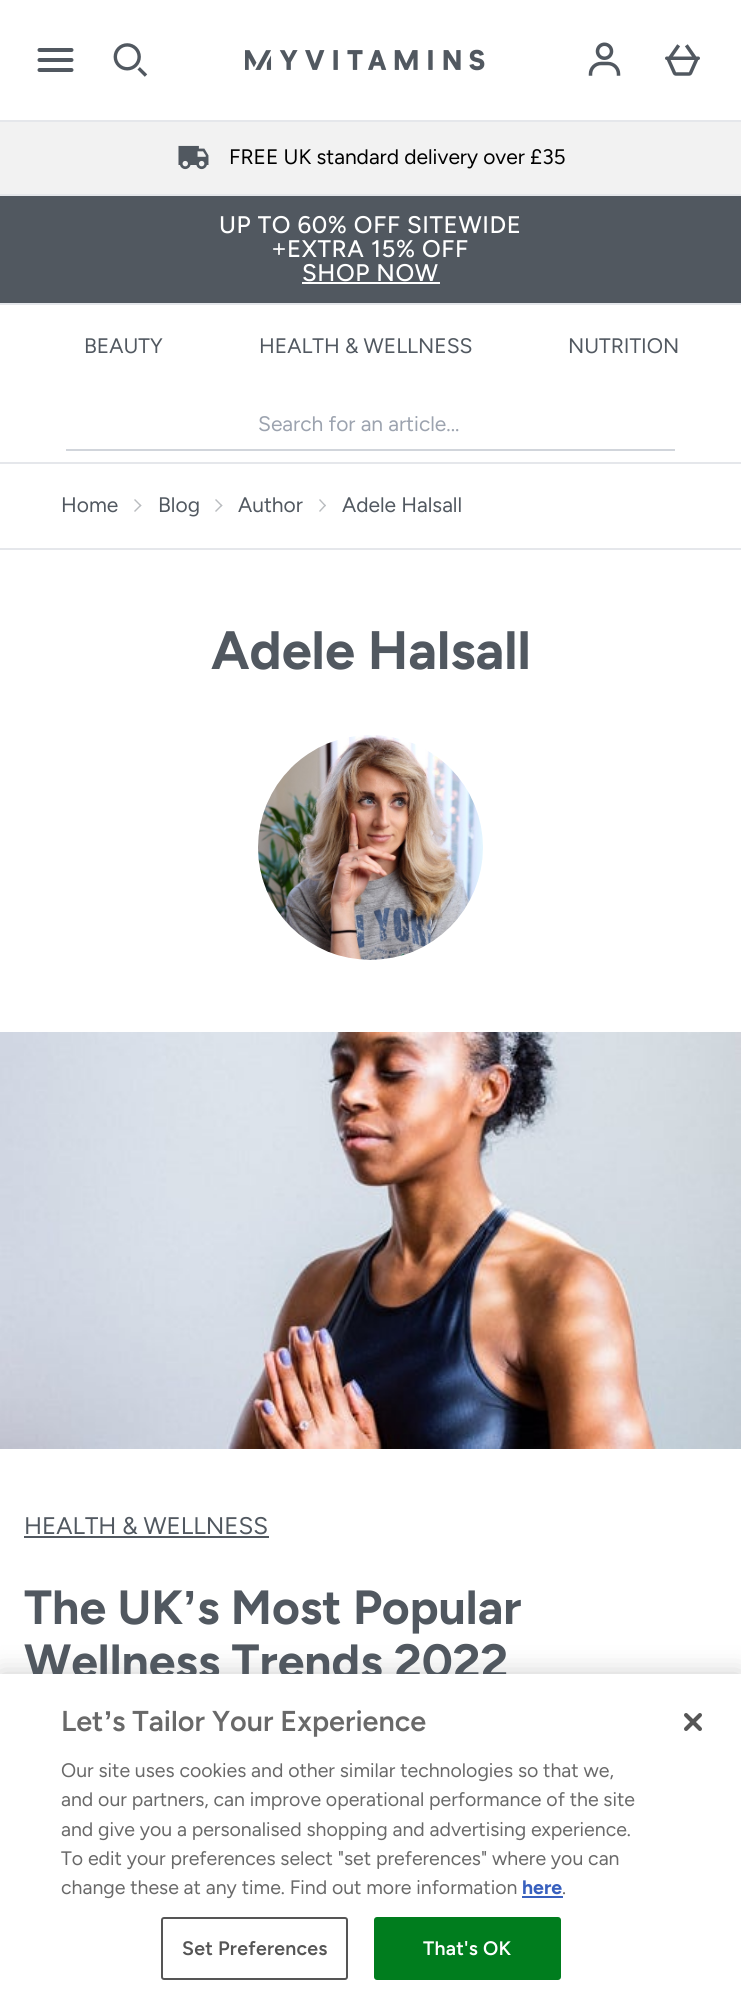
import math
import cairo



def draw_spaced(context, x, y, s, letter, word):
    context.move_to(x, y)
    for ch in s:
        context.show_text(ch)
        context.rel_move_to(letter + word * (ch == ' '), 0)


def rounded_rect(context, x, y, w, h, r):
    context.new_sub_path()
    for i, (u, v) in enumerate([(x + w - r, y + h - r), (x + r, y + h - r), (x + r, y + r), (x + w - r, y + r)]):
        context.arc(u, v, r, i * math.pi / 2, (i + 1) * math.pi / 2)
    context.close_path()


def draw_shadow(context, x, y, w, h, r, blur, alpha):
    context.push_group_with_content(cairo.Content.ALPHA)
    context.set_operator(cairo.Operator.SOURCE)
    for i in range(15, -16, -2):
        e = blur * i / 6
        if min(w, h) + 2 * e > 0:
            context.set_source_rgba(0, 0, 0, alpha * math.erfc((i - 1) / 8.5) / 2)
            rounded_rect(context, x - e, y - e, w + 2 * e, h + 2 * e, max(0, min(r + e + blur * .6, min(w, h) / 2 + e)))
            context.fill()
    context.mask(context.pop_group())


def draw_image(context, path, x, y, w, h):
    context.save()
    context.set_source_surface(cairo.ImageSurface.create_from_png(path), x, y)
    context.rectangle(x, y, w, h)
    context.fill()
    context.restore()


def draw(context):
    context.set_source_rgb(1, 1, 1)
    context.paint()
    draw_image(context, "images/1.png", 37, 48, 37, 24)
    draw_image(context, "images/2.png", 113, 43, 35, 34)
    draw_image(context, "images/3.png", 245, 49, 240, 22)
    draw_image(context, "images/4.png", 588, 42, 33, 34)
    draw_image(context, "images/5.png", 665, 44, 35, 32)
    context.set_source_rgb(242 / 255, 242 / 255, 242 / 255)
    context.rectangle(0, 122, 741, 72)
    context.fill()
    context.set_source_rgb(229 / 255, 231 / 255, 235 / 255)
    context.rectangle(0, 120, 741, 2)
    context.fill()
    draw_image(context, "images/6.png", 178, 145, 31, 25)
    context.set_source_rgb(81 / 255, 88 / 255, 96 / 255)
    context.rectangle(0, 196, 741, 107)
    context.fill()
    context.set_source_rgb(229 / 255, 231 / 255, 235 / 255)
    context.rectangle(0, 194, 741, 2)
    context.fill()
    context.rectangle(0, 303, 741, 2)
    context.fill()
    context.set_source_rgb(1, 1, 1)
    context.rectangle(302, 282, 138, 2)
    context.fill()
    context.set_source_rgb(209 / 255, 213 / 255, 219 / 255)
    context.rectangle(66, 449, 609, 2)
    context.fill()
    context.set_source_rgb(229 / 255, 231 / 255, 235 / 255)
    context.rectangle(0, 462, 741, 2)
    context.fill()
    context.rectangle(0, 548, 741, 2)
    context.fill()
    context.set_source_rgb(185 / 255, 188 / 255, 191 / 255)
    context.new_path()
    context.move_to(135, 499)
    context.line_to(141.5, 505.5)
    context.line_to(140.5, 506.5)
    context.line_to(134, 500)
    context.close_path()
    context.fill()
    context.new_path()
    context.move_to(140.5, 504.5)
    context.line_to(141.5, 505.5)
    context.line_to(135, 512)
    context.line_to(134, 511)
    context.close_path()
    context.fill()
    context.new_path()
    context.move_to(216, 499)
    context.line_to(222.5, 505.5)
    context.line_to(221.5, 506.5)
    context.line_to(215, 500)
    context.close_path()
    context.fill()
    context.new_path()
    context.move_to(221.5, 504.5)
    context.line_to(222.5, 505.5)
    context.line_to(216, 512)
    context.line_to(215, 511)
    context.close_path()
    context.fill()
    context.new_path()
    context.move_to(320, 499)
    context.line_to(326, 505.5)
    context.line_to(325, 506.5)
    context.line_to(319, 500)
    context.close_path()
    context.fill()
    context.new_path()
    context.move_to(325, 504.5)
    context.line_to(326, 505.5)
    context.line_to(320, 512)
    context.line_to(319, 511)
    context.close_path()
    context.fill()
    draw_image(context, "images/7.png", 258, 735, 225, 225)
    draw_image(context, "images/8.png", 0, 1032, 741, 417)
    context.set_source_rgb(81 / 255, 88 / 255, 96 / 255)
    context.rectangle(24, 1536, 245, 2)
    context.fill()
    context.set_source_rgb(0, 0, 0)
    draw_shadow(context, 0, 1674, 741, 330, 0, 13.5, 0.2)
    context.select_font_face("Figtree")
    context.set_font_size(21)
    context.set_source_rgb(0, 0, 0)
    context.move_to(229, 164)
    context.show_text("FREE UK standard delivery over £35")
    context.select_font_face("Figtree Medium")
    context.set_font_size(24)
    context.set_source_rgb(1, 1, 1)
    draw_spaced(context, 219, 233, "UP TO 60% OFF SITEWIDE", 0.6, 0)
    context.select_font_face("Liberation Sans")
    draw_spaced(context, 272, 257, "+", 0.6, 0)
    context.select_font_face("Figtree Medium")
    draw_spaced(context, 287, 257, "EXTRA 15% OFF", 0.6, 0)
    draw_spaced(context, 302, 281, "SHOP NOW", 0.6, 0)
    context.select_font_face("Figtree")
    context.set_font_size(21)
    context.set_source_rgb(81 / 255, 88 / 255, 96 / 255)
    context.move_to(84, 353)
    context.show_text("BEAUTY")
    context.move_to(259, 353)
    context.show_text("HEALTH & WELLNESS")
    context.move_to(568, 353)
    context.show_text("NUTRITION")
    context.set_source_rgb(156 / 255, 163 / 255, 175 / 255)
    context.move_to(258, 431)
    context.show_text("Search for an article...")
    context.set_source_rgb(81 / 255, 88 / 255, 96 / 255)
    context.move_to(61, 512)
    context.show_text("Home")
    context.move_to(158, 512)
    context.show_text("Blog")
    context.move_to(238, 512)
    context.show_text("Author")
    context.move_to(342, 512)
    context.show_text("Adele Halsall")
    context.select_font_face("Figtree", cairo.FontSlant.NORMAL, cairo.FontWeight.BOLD)
    context.set_font_size(54)
    context.move_to(211, 669)
    context.show_text("Adele Halsall")
    context.select_font_face("Figtree")
    context.set_font_size(24)
    context.move_to(24, 1534)
    context.show_text("HEALTH & WELLNESS")
    context.select_font_face("Figtree", cairo.FontSlant.NORMAL, cairo.FontWeight.BOLD)
    context.set_font_size(48)
    context.move_to(24, 1624)
    context.show_text("The UK")
    context.select_font_face("Liberation Sans", cairo.FontSlant.NORMAL, cairo.FontWeight.BOLD)
    context.move_to(183, 1624)
    context.show_text("’")
    context.select_font_face("Figtree", cairo.FontSlant.NORMAL, cairo.FontWeight.BOLD)
    context.move_to(197, 1624)
    context.show_text("s Most Popular")
    context.move_to(24, 1678)
    context.show_text("Wellness Trends 2022")
    context.set_source_rgb(1, 1, 1)
    context.rectangle(0, 1674, 741, 330)
    context.fill()
    context.select_font_face("Figtree SemiBold")
    context.set_font_size(28.75)
    context.set_source_rgb(105 / 255, 105 / 255, 105 / 255)
    context.move_to(61, 1731)
    context.show_text("Let")
    context.select_font_face("Liberation Sans", cairo.FontSlant.NORMAL, cairo.FontWeight.BOLD)
    context.move_to(104, 1731)
    context.show_text("’")
    context.select_font_face("Figtree SemiBold")
    context.move_to(112, 1731)
    context.show_text("s Tailor Your Experience")
    context.select_font_face("Figtree")
    context.set_font_size(19.5)
    context.move_to(61, 1777)
    context.show_text("Our site uses cookies and other similar technologies so that we,")
    context.move_to(61, 1806)
    context.show_text("and our partners, can improve operational performance of the site")
    context.move_to(61, 1836)
    context.show_text("and give you a personalised shopping and advertising experience.")
    context.move_to(61, 1865)
    context.show_text("To edit your preferences select \"set preferences\" where you can")
    context.move_to(61, 1894)
    context.show_text("change these at any time. Find out more information")
    context.select_font_face("Figtree", cairo.FontSlant.NORMAL, cairo.FontWeight.BOLD)
    context.set_source_rgb(56 / 255, 96 / 255, 190 / 255)
    context.move_to(522, 1894)
    context.show_text("here")
    context.rectangle(522, 1896, 41, 2)
    context.fill()
    context.select_font_face("Figtree")
    context.set_source_rgb(105 / 255, 105 / 255, 105 / 255)
    context.move_to(562, 1894)
    context.show_text(".")
    rounded_rect(context, 162, 1918, 185, 61, 2)
    context.set_source_rgb(85 / 255, 85 / 255, 85 / 255)
    context.stroke()
    context.select_font_face("Figtree SemiBold")
    draw_spaced(context, 182, 1955, "Set Preferences", 0.25, 0)
    context.set_source_rgb(0, 125 / 255, 30 / 255)
    rounded_rect(context, 375, 1918, 185, 61, 2)
    context.fill_preserve()
    context.stroke()
    context.set_source_rgb(1, 1, 1)
    draw_spaced(context, 423, 1955, "That's OK", 0.25, 0)
    draw_image(context, "images/9.png", 684, 1713, 18, 18)


surface = cairo.ImageSurface(cairo.Format.RGB24, 741, 2004)
context = cairo.Context(surface)
options = cairo.FontOptions()
options.set_hint_metrics(cairo.HintMetrics.OFF)
options.set_hint_style(cairo.HintStyle.NONE)
context.set_font_options(options)
context.set_miter_limit(4)
draw(context)
surface.write_to_png("out.png")
